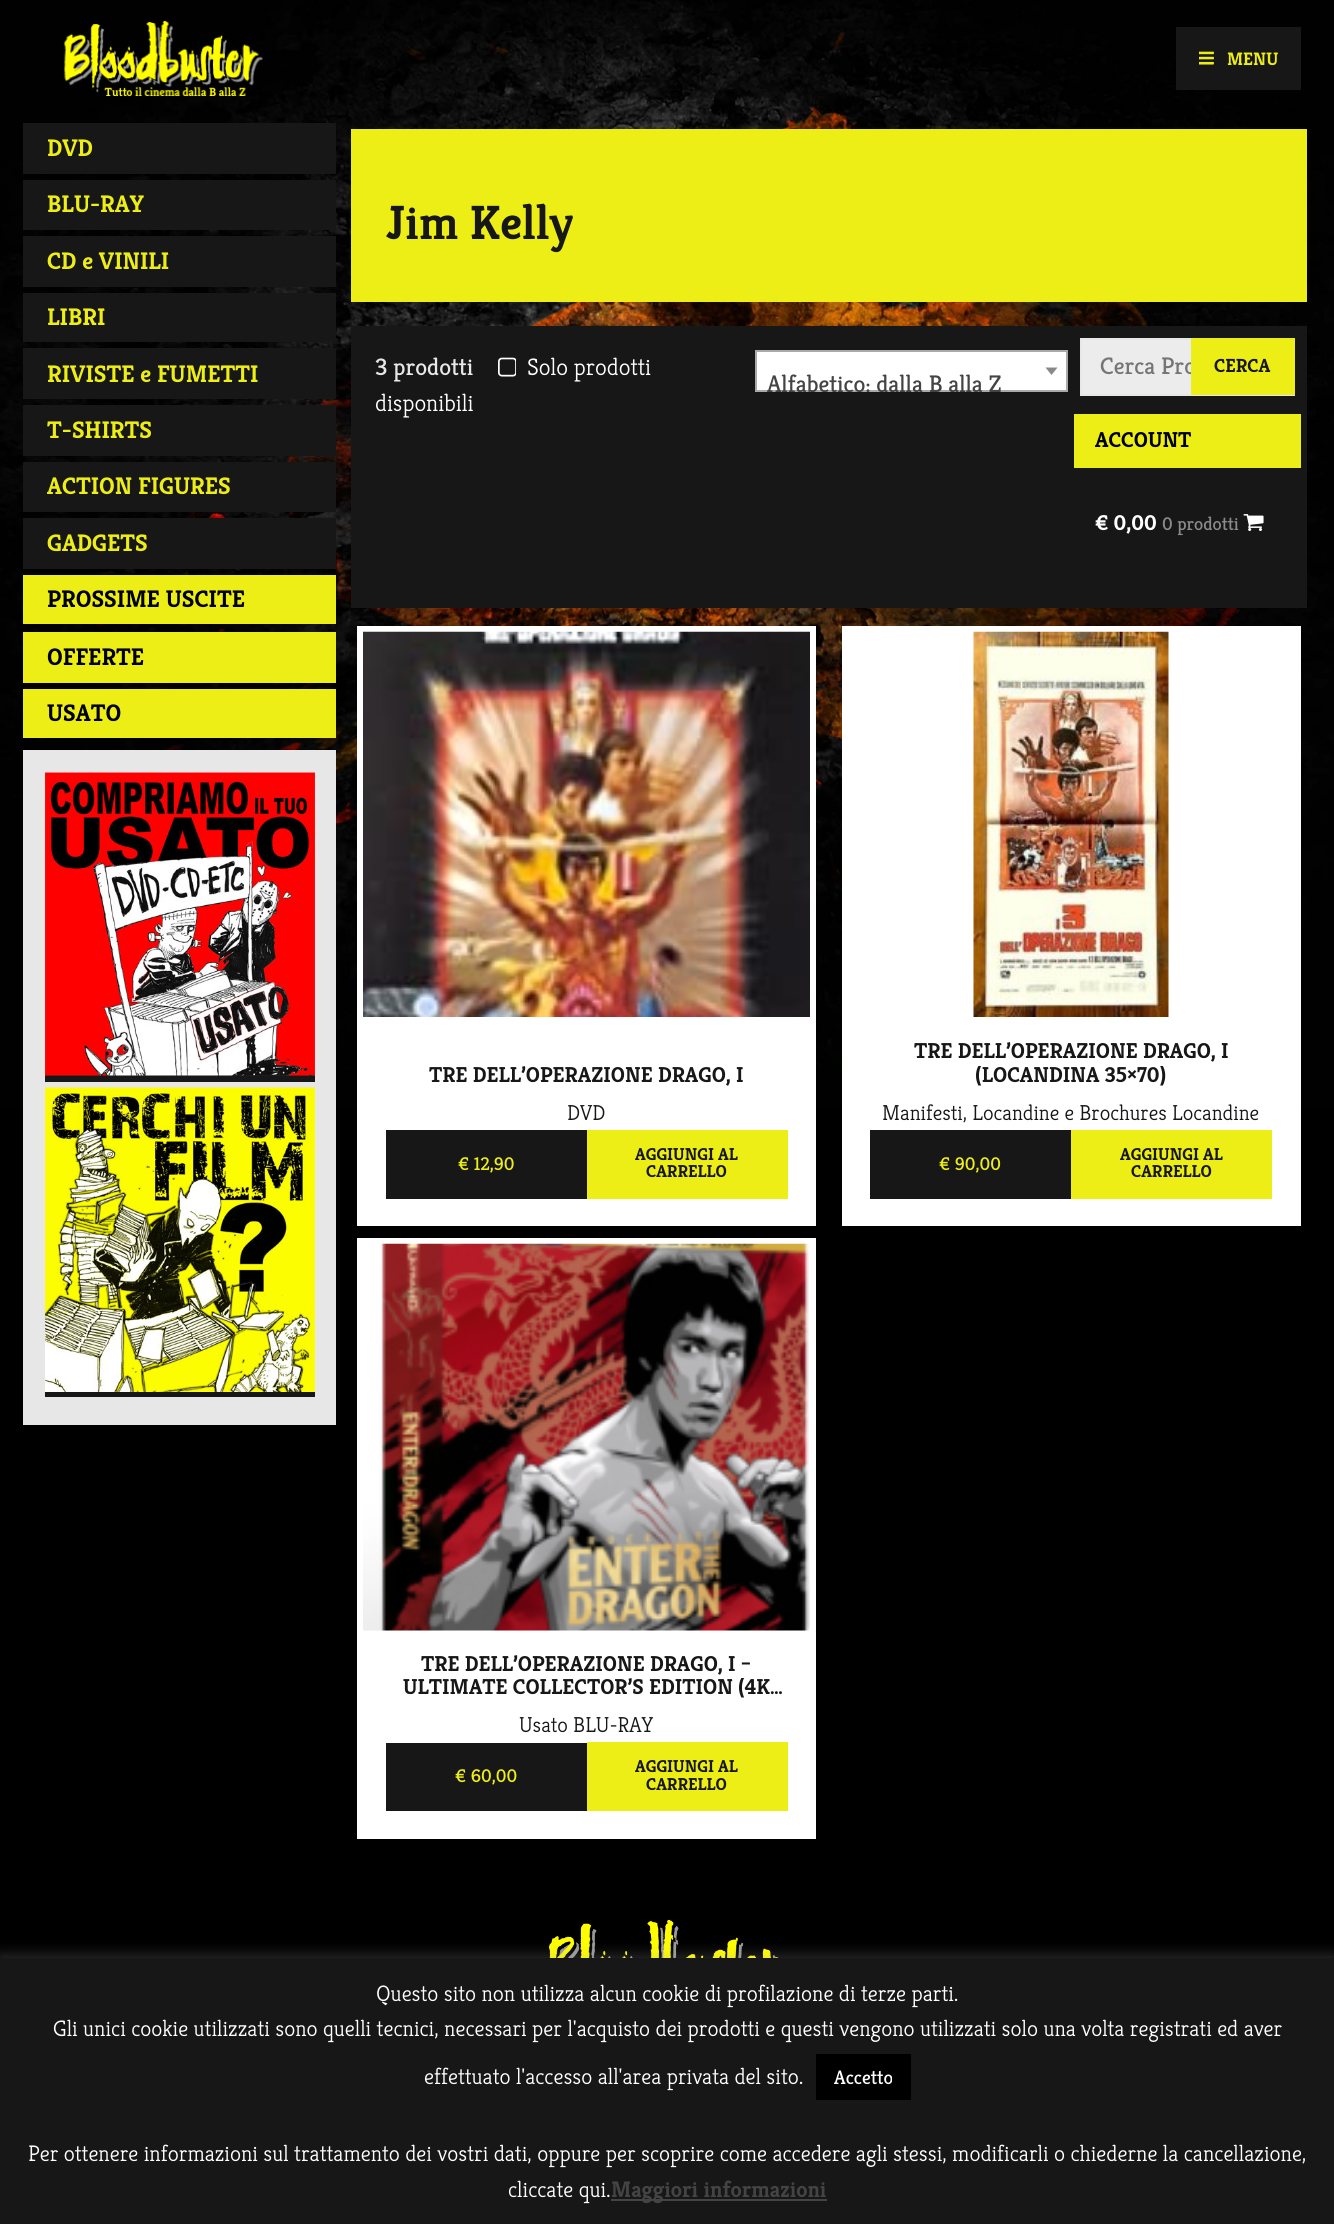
import math
import cairo



def rounded_rect(context, x, y, w, h, r):
    context.new_sub_path()
    for i, (u, v) in enumerate([(x + w - r, y + h - r), (x + r, y + h - r), (x + r, y + r), (x + w - r, y + r)]):
        context.arc(u, v, r, i * math.pi / 2, (i + 1) * math.pi / 2)
    context.close_path()


def draw_shadow(context, x, y, w, h, r, blur, alpha):
    context.push_group_with_content(cairo.Content.ALPHA)
    context.set_operator(cairo.Operator.SOURCE)
    for i in range(15, -16, -2):
        e = blur * i / 6
        if min(w, h) + 2 * e > 0:
            context.set_source_rgba(0, 0, 0, alpha * math.erfc((i - 1) / 8.5) / 2)
            rounded_rect(context, x - e, y - e, w + 2 * e, h + 2 * e, max(0, min(r + e + blur * .6, min(w, h) / 2 + e)))
            context.fill()
    context.mask(context.pop_group())


def draw_image(context, path, x, y, w, h):
    context.save()
    context.set_source_surface(cairo.ImageSurface.create_from_png(path), x, y)
    context.rectangle(x, y, w, h)
    context.fill()
    context.restore()


def draw(context):
    context.set_source_rgb(0, 0, 0)
    context.paint()
    draw_image(context, "images/1.png", 0, 0, 1334, 1107)
    draw_image(context, "images/2.png", 64, 21, 199, 75)
    context.set_source_rgb(23 / 255, 23 / 255, 23 / 255)
    context.rectangle(1176, 27, 125, 63)
    context.fill()
    draw_image(context, "images/3.png", 1199, 51, 15, 14)
    context.rectangle(23, 123, 313, 51)
    context.fill()
    context.rectangle(23, 180, 313, 50)
    context.fill()
    context.rectangle(23, 236, 313, 51)
    context.fill()
    context.rectangle(23, 293, 313, 49)
    context.fill()
    context.rectangle(23, 348, 313, 51)
    context.fill()
    context.rectangle(23, 405, 313, 51)
    context.fill()
    context.rectangle(23, 462, 313, 50)
    context.fill()
    context.rectangle(23, 518, 313, 51)
    context.fill()
    context.set_source_rgb(238 / 255, 238 / 255, 23 / 255)
    context.rectangle(23, 575, 313, 49)
    context.fill()
    context.rectangle(23, 632, 313, 51)
    context.fill()
    context.rectangle(23, 689, 313, 49)
    context.fill()
    context.set_source_rgb(231 / 255, 231 / 255, 231 / 255)
    context.rectangle(23, 750, 313, 675)
    context.fill()
    context.set_source_rgb(23 / 255, 23 / 255, 23 / 255)
    context.rectangle(45, 1075, 270, 7)
    context.fill()
    draw_image(context, "images/4.png", 45, 772, 270, 304)
    context.rectangle(45, 1392, 270, 5)
    context.fill()
    draw_image(context, "images/5.png", 45, 1087, 270, 305)
    context.set_source_rgb(238 / 255, 238 / 255, 23 / 255)
    context.rectangle(351, 129, 956, 173)
    context.fill()
    context.set_source_rgb(23 / 255, 23 / 255, 23 / 255)
    context.rectangle(351, 326, 956, 282)
    context.fill()
    draw_image(context, "images/6.png", 498, 357, 18, 20)
    context.set_source_rgb(1, 1, 1)
    context.rectangle(756, 351, 311, 40)
    context.fill_preserve()
    context.set_source_rgb(170 / 255, 170 / 255, 170 / 255)
    context.stroke()
    context.set_source_rgb(136 / 255, 136 / 255, 136 / 255)
    context.new_path()
    context.move_to(1045.5, 367.5)
    context.line_to(1057.5, 367.5)
    context.line_to(1051.5, 375)
    context.close_path()
    context.fill()
    context.set_source_rgb(236 / 255, 236 / 255, 236 / 255)
    context.rectangle(1082, 340, 109, 54)
    context.fill()
    context.rectangle(1081, 339, 213, 56)
    context.set_source_rgb(231 / 255, 231 / 255, 231 / 255)
    context.stroke()
    context.set_source_rgb(238 / 255, 238 / 255, 23 / 255)
    context.rectangle(1074, 414, 227, 54)
    context.fill()
    draw_image(context, "images/7.png", 1243, 514, 21, 17)
    context.set_source_rgb(1, 1, 1)
    context.rectangle(357, 626, 459, 600)
    context.fill()
    draw_image(context, "images/8.png", 363, 631, 447, 386)
    context.set_source_rgb(23 / 255, 23 / 255, 23 / 255)
    context.rectangle(386, 1130, 201, 69)
    context.fill()
    context.set_source_rgb(238 / 255, 238 / 255, 23 / 255)
    context.rectangle(587, 1130, 201, 69)
    context.fill()
    context.set_source_rgb(1, 1, 1)
    context.rectangle(842, 626, 459, 600)
    context.fill()
    draw_image(context, "images/9.png", 973, 631, 196, 386)
    context.set_source_rgb(23 / 255, 23 / 255, 23 / 255)
    context.rectangle(870, 1130, 201, 69)
    context.fill()
    context.set_source_rgb(238 / 255, 238 / 255, 23 / 255)
    context.rectangle(1071, 1130, 201, 69)
    context.fill()
    context.set_source_rgb(1, 1, 1)
    context.rectangle(357, 1238, 459, 601)
    context.fill()
    draw_image(context, "images/10.png", 363, 1243, 447, 388)
    context.set_source_rgb(23 / 255, 23 / 255, 23 / 255)
    context.rectangle(386, 1743, 201, 68)
    context.fill()
    context.set_source_rgb(238 / 255, 238 / 255, 23 / 255)
    context.rectangle(587, 1742, 201, 69)
    context.fill()
    draw_image(context, "images/11.png", 549, 1920, 230, 38)
    context.set_source_rgb(172 / 255, 171 / 255, 171 / 255)
    draw_shadow(context, 0, 1956, 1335, 267, 0, 7.5, 0.3)
    context.set_source_rgb(23 / 255, 23 / 255, 23 / 255)
    context.rectangle(0, 1958, 1334, 266)
    context.fill()
    context.set_source_rgb(0, 0, 0)
    context.rectangle(816, 2054, 95, 46)
    context.fill()
    context.set_source_rgb(68 / 255, 68 / 255, 68 / 255)
    context.rectangle(611, 2199, 216, 2)
    context.fill()
    context.select_font_face("Kreon", cairo.FontSlant.NORMAL, cairo.FontWeight.BOLD)
    context.set_font_size(18)
    context.set_source_rgb(238 / 255, 238 / 255, 23 / 255)
    context.move_to(1227, 65)
    context.show_text("MENU")
    context.set_font_size(24)
    context.move_to(47, 156)
    context.show_text("DVD")
    context.move_to(47, 212)
    context.show_text("BLU-RAY")
    context.move_to(47, 269)
    context.show_text("CD e VINILI")
    context.move_to(47, 325)
    context.show_text("LIBRI")
    context.move_to(47, 382)
    context.show_text("RIVISTE e FUMETTI")
    context.move_to(47, 438)
    context.show_text("T-SHIRTS")
    context.move_to(47, 494)
    context.show_text("ACTION FIGURES")
    context.move_to(47, 551)
    context.show_text("GADGETS")
    context.set_source_rgb(0, 0, 0)
    context.move_to(47, 607)
    context.show_text("PROSSIME USCITE")
    context.move_to(47, 665)
    context.show_text("OFFERTE")
    context.move_to(47, 721)
    context.show_text("USATO")
    context.set_font_size(48)
    context.set_source_rgb(23 / 255, 23 / 255, 23 / 255)
    context.move_to(386, 239)
    context.show_text("Jim Kelly")
    context.select_font_face("Kreon")
    context.set_font_size(24)
    context.set_source_rgb(231 / 255, 231 / 255, 231 / 255)
    context.move_to(375, 375)
    context.show_text("3 prodotti")
    context.select_font_face("Kreon Light")
    context.set_source_rgb(1, 1, 1)
    context.move_to(527, 375)
    context.show_text("Solo prodotti")
    context.move_to(375, 411)
    context.show_text("disponibili")
    context.select_font_face("Kreon")
    context.set_source_rgb(68 / 255, 68 / 255, 68 / 255)
    context.move_to(767, 392)
    context.show_text("Alfabetico: dalla B alla Z")
    context.set_source_rgb(117 / 255, 117 / 255, 117 / 255)
    context.move_to(1100, 374)
    context.show_text("Cerca Pro")
    context.set_source_rgb(238 / 255, 238 / 255, 23 / 255)
    context.rectangle(1191, 338, 104, 57)
    context.fill()
    context.select_font_face("Kreon", cairo.FontSlant.NORMAL, cairo.FontWeight.BOLD)
    context.set_font_size(19)
    context.set_source_rgb(23 / 255, 23 / 255, 23 / 255)
    context.move_to(1214, 372)
    context.show_text("CERCA")
    context.set_font_size(21.6)
    context.set_source_rgb(0, 0, 0)
    context.move_to(1095, 447)
    context.show_text("ACCOUNT")
    context.set_source_rgb(1, 1, 1)
    context.move_to(1095, 530)
    context.show_text("€ 0,00")
    context.select_font_face("Kreon")
    context.set_font_size(18.5)
    context.set_source_rgb(139 / 255, 139 / 255, 139 / 255)
    context.move_to(1162, 530)
    context.show_text("0 prodotti")
    context.select_font_face("Kreon", cairo.FontSlant.NORMAL, cairo.FontWeight.BOLD)
    context.set_font_size(21.6)
    context.set_source_rgb(23 / 255, 23 / 255, 23 / 255)
    context.move_to(429, 1082)
    context.show_text("TRE DELL’OPERAZIONE DRAGO, I")
    context.select_font_face("Kreon Light")
    context.move_to(567, 1120)
    context.show_text("DVD")
    context.select_font_face("Kreon")
    context.set_font_size(18.5)
    context.set_source_rgb(238 / 255, 238 / 255, 23 / 255)
    context.move_to(458, 1170)
    context.show_text("€ 12,90")
    context.select_font_face("Kreon", cairo.FontSlant.NORMAL, cairo.FontWeight.BOLD)
    context.set_font_size(17.25)
    context.set_source_rgb(23 / 255, 23 / 255, 23 / 255)
    context.move_to(635, 1160)
    context.show_text("AGGIUNGI AL")
    context.move_to(646, 1177)
    context.show_text("CARRELLO")
    context.set_font_size(21.6)
    context.move_to(914, 1058)
    context.show_text("TRE DELL’OPERAZIONE DRAGO, I")
    context.move_to(975, 1082)
    context.show_text("(LOCANDINA 35×70)")
    context.select_font_face("Kreon Light")
    context.move_to(882, 1120)
    context.show_text("Manifesti, Locandine e Brochures Locandine")
    context.select_font_face("Kreon")
    context.set_font_size(18.5)
    context.set_source_rgb(238 / 255, 238 / 255, 23 / 255)
    context.move_to(939, 1170)
    context.show_text("€ 90,00")
    context.select_font_face("Kreon", cairo.FontSlant.NORMAL, cairo.FontWeight.BOLD)
    context.set_font_size(17.25)
    context.set_source_rgb(23 / 255, 23 / 255, 23 / 255)
    context.move_to(1120, 1160)
    context.show_text("AGGIUNGI AL")
    context.move_to(1131, 1177)
    context.show_text("CARRELLO")
    context.set_font_size(21.6)
    context.move_to(421, 1671)
    context.show_text("TRE DELL’OPERAZIONE DRAGO, I –")
    context.move_to(403, 1694)
    context.show_text("ULTIMATE COLLECTOR’S EDITION (4K…")
    context.select_font_face("Kreon Light")
    context.move_to(519, 1732)
    context.show_text("Usato BLU-RAY")
    context.select_font_face("Kreon")
    context.set_font_size(18.5)
    context.set_source_rgb(238 / 255, 238 / 255, 23 / 255)
    context.move_to(455, 1782)
    context.show_text("€ 60,00")
    context.select_font_face("Kreon", cairo.FontSlant.NORMAL, cairo.FontWeight.BOLD)
    context.set_font_size(17.25)
    context.set_source_rgb(23 / 255, 23 / 255, 23 / 255)
    context.move_to(635, 1772)
    context.show_text("AGGIUNGI AL")
    context.move_to(646, 1790)
    context.show_text("CARRELLO")
    context.select_font_face("Kreon Light")
    context.set_font_size(22.5)
    context.set_source_rgb(1, 1, 1)
    context.move_to(376, 2001)
    context.show_text("Questo sito non utilizza alcun cookie di profilazione di terze parti.")
    context.move_to(53, 2036)
    context.show_text("Gli unici cookie utilizzati sono quelli tecnici, necessari per l'acquisto dei prodotti e questi vengono utilizzati solo una volta registrati ed aver")
    context.move_to(424, 2084)
    context.show_text("effettuato l'accesso all'area privata del sito.")
    context.select_font_face("Kreon")
    context.set_font_size(19.5)
    context.move_to(834, 2084)
    context.show_text("Accetto")
    context.select_font_face("Kreon Light")
    context.set_font_size(22.5)
    context.move_to(28, 2161)
    context.show_text("Per ottenere informazioni sul trattamento dei vostri dati, oppure per scoprire come accedere agli stessi, modificarli o chiederne la cancellazione,")
    context.move_to(508, 2197)
    context.show_text("cliccate qui.")
    context.select_font_face("Kreon", cairo.FontSlant.NORMAL, cairo.FontWeight.BOLD)
    context.set_source_rgb(68 / 255, 68 / 255, 68 / 255)
    context.move_to(611, 2197)
    context.show_text("Maggiori informazioni")


surface = cairo.ImageSurface(cairo.Format.RGB24, 1334, 2224)
context = cairo.Context(surface)
options = cairo.FontOptions()
options.set_hint_metrics(cairo.HintMetrics.OFF)
options.set_hint_style(cairo.HintStyle.NONE)
context.set_font_options(options)
context.set_miter_limit(4)
draw(context)
surface.write_to_png("out.png")
